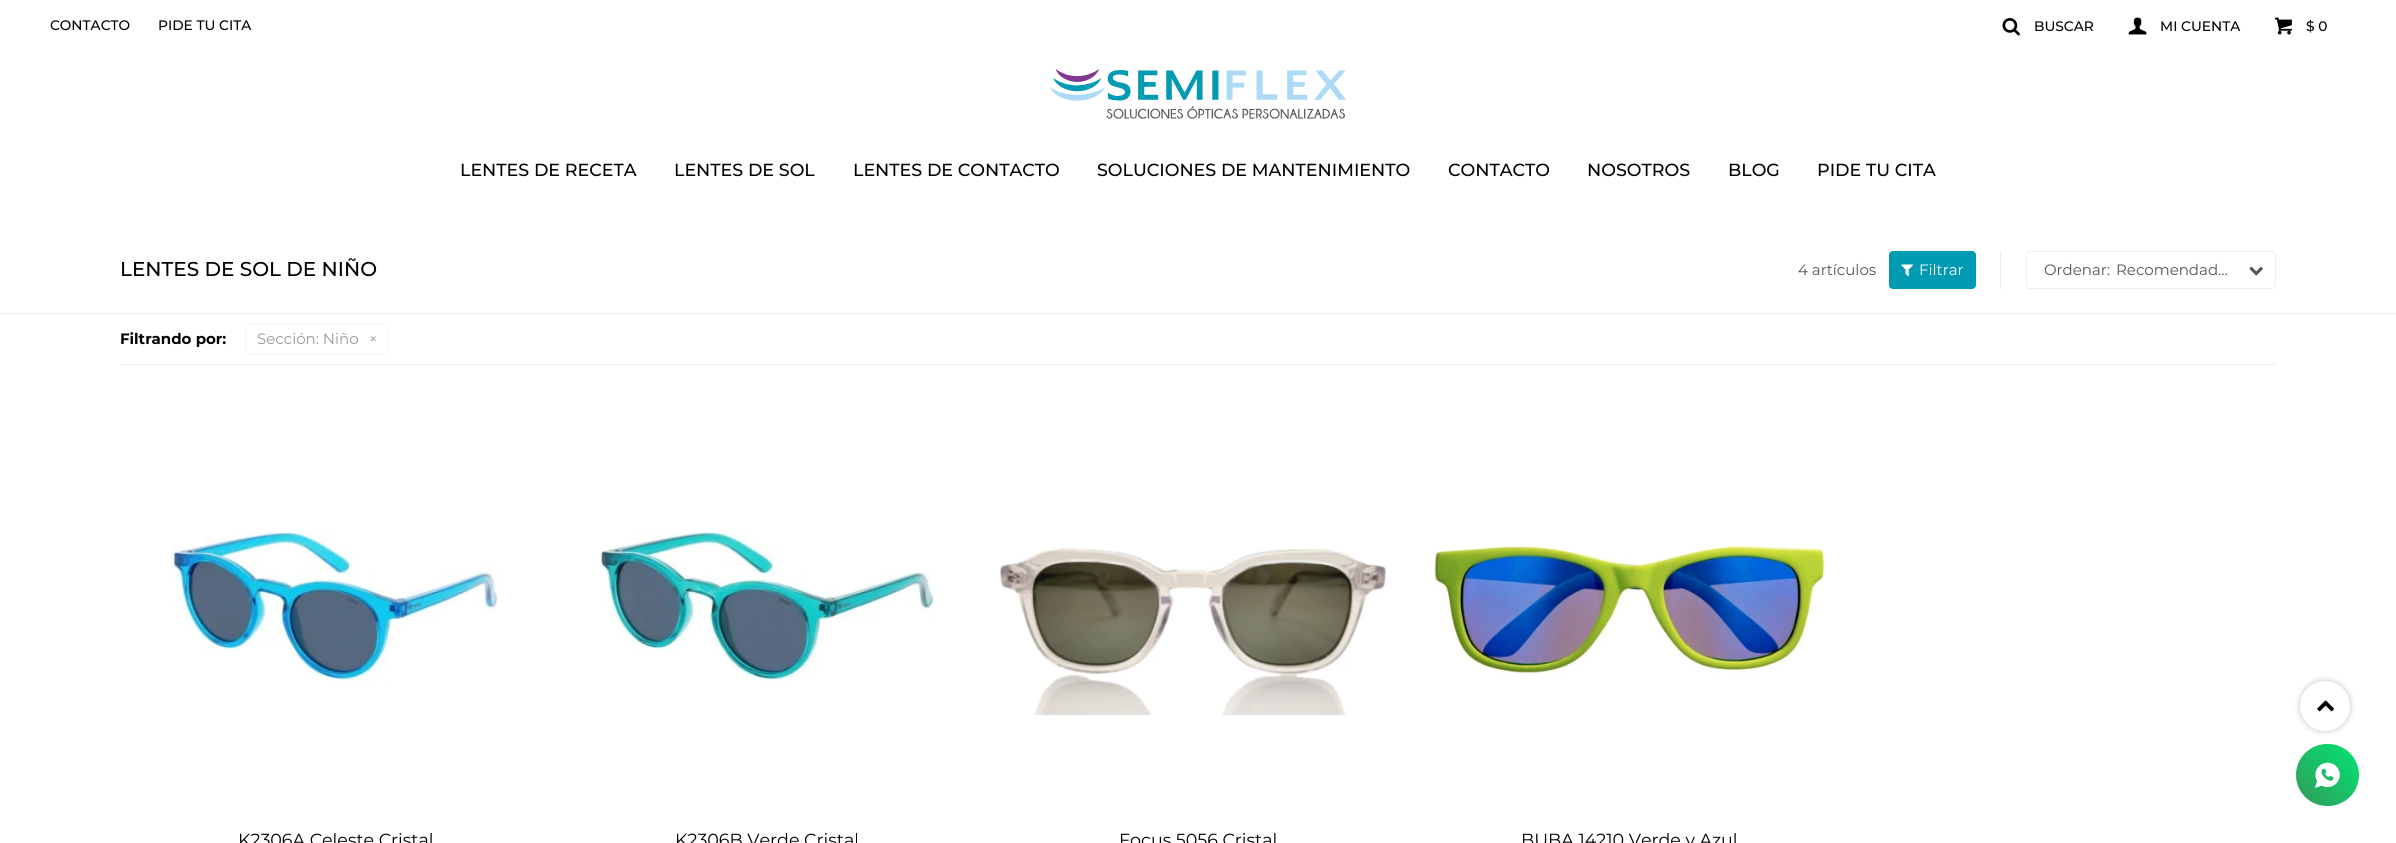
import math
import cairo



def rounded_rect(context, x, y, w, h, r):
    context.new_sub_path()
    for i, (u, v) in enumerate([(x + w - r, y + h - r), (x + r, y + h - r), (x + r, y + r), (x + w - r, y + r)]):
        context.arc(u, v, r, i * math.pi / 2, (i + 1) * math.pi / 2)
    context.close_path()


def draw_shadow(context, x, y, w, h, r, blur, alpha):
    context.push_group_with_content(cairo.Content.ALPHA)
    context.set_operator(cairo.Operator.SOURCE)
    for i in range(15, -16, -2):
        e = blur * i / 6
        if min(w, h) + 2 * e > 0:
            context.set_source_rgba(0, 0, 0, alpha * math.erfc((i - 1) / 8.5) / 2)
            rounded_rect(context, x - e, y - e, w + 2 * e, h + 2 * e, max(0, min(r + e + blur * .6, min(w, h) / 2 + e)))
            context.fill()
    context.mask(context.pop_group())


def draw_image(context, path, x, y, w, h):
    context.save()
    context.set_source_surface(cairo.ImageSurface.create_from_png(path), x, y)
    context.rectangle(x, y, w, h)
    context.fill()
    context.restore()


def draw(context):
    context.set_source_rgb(1, 1, 1)
    context.paint()
    draw_image(context, "images/1.png", 2002, 18, 18, 18)
    draw_image(context, "images/2.png", 2128, 17, 19, 18)
    draw_image(context, "images/3.png", 2275, 17, 17, 18)
    draw_image(context, "images/4.png", 1050, 69, 296, 50)
    context.set_source_rgb(0, 154 / 255, 178 / 255)
    rounded_rect(context, 1889, 251, 87, 38, 4)
    context.fill()
    draw_image(context, "images/5.png", 1901, 264, 12, 13)
    context.set_source_rgb(237 / 255, 237 / 255, 237 / 255)
    context.rectangle(2000, 251, 1, 38)
    context.fill()
    draw_image(context, "images/6.png", 2249, 266, 14, 10)
    rounded_rect(context, 2026.5, 251.5, 249, 37, 3.5)
    context.set_line_width(1)
    context.stroke()
    context.rectangle(0, 313, 2396, 1)
    context.fill()
    context.rectangle(120, 364, 2156, 1)
    context.fill()
    rounded_rect(context, 245.5, 323.5, 142, 31, 3.5)
    context.set_source_rgb(246 / 255, 246 / 255, 246 / 255)
    context.stroke()
    context.set_source_rgb(0, 0, 0)
    draw_shadow(context, 2300, 681, 50, 50, 25, 3, 0.25)
    context.set_source_rgb(1, 1, 1)
    context.arc(2325, 706, 25, 0, 2 * math.pi)
    context.fill()
    draw_image(context, "images/7.png", 2317, 700, 17, 12)
    draw_image(context, "images/8.png", 171, 531, 328, 156)
    draw_image(context, "images/9.png", 599, 531, 336, 151)
    draw_image(context, "images/10.png", 999, 548, 388, 169)
    draw_image(context, "images/11.png", 1433, 545, 393, 129)
    gradient = cairo.LinearGradient(2296, 806, 2359, 744)
    gradient.add_color_stop_rgba(0, 51 / 255, 153 / 255, 90 / 255, 1)
    gradient.add_color_stop_rgba(1, 1 / 255, 230 / 255, 117 / 255, 1)
    context.set_source(gradient)
    rounded_rect(context, 2296, 744, 63, 62, 31)
    context.fill()
    draw_image(context, "images/12.png", 2315, 762, 25, 26)
    context.select_font_face("Montserrat Medium")
    context.set_font_size(13.75)
    context.set_source_rgb(0, 0, 0)
    context.move_to(50, 30)
    context.show_text("CONTACTO")
    context.move_to(158, 30)
    context.show_text("PIDE TU CITA")
    context.move_to(2034, 31)
    context.show_text("BUSCAR")
    context.move_to(2160, 31)
    context.show_text("MI CUENTA")
    context.move_to(2306, 31)
    context.show_text("$ 0")
    context.set_font_size(17.5)
    context.move_to(460, 176)
    context.show_text("LENTES DE RECETA")
    context.move_to(674, 176)
    context.show_text("LENTES DE SOL")
    context.move_to(853, 176)
    context.show_text("LENTES DE CONTACTO")
    context.move_to(1097, 176)
    context.show_text("SOLUCIONES DE MANTENIMIENTO")
    context.move_to(1448, 176)
    context.show_text("CONTACTO")
    context.move_to(1587, 176)
    context.show_text("NOSOTROS")
    context.move_to(1728, 176)
    context.show_text("BLOG")
    context.move_to(1817, 176)
    context.show_text("PIDE TU CITA")
    context.set_font_size(20)
    context.move_to(120, 276)
    context.show_text("LENTES DE SOL DE NIÑO")
    context.select_font_face("Montserrat")
    context.set_font_size(15)
    context.set_source_rgb(85 / 255, 85 / 255, 85 / 255)
    context.move_to(1798, 275)
    context.show_text("4 artículos")
    context.set_source_rgb(1, 1, 1)
    context.move_to(1919, 275)
    context.show_text("Filtrar")
    context.set_source_rgb(85 / 255, 85 / 255, 85 / 255)
    context.move_to(2044, 275)
    context.show_text("Ordenar:")
    context.move_to(2116, 275)
    context.show_text("Recomendad…")
    context.select_font_face("Montserrat", cairo.FontSlant.NORMAL, cairo.FontWeight.BOLD)
    context.set_source_rgb(0, 0, 0)
    context.move_to(120, 344)
    context.show_text("Filtrando por:")
    context.select_font_face("Montserrat")
    context.set_source_rgb(153 / 255, 153 / 255, 153 / 255)
    context.move_to(257, 344)
    context.show_text("Sección: Niño")
    context.move_to(369, 344)
    context.show_text("×")
    context.set_font_size(17.5)
    context.set_source_rgb(0, 0, 0)
    context.move_to(238, 846)
    context.show_text("K2306A Celeste Cristal")
    context.move_to(675, 846)
    context.show_text("K2306B Verde Cristal")
    context.move_to(1119, 846)
    context.show_text("Focus 5056 Cristal")
    context.move_to(1521, 846)
    context.show_text("BUBA 14210 Verde y Azul")


surface = cairo.ImageSurface(cairo.Format.RGB24, 2396, 843)
context = cairo.Context(surface)
options = cairo.FontOptions()
options.set_hint_metrics(cairo.HintMetrics.OFF)
options.set_hint_style(cairo.HintStyle.NONE)
context.set_font_options(options)
context.set_miter_limit(4)
draw(context)
surface.write_to_png("out.png")
